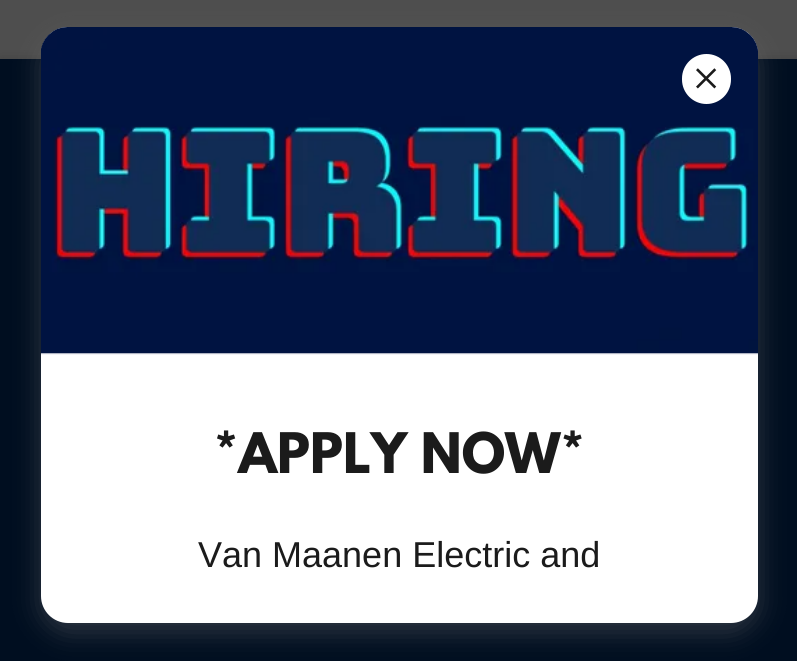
import math
import cairo



def rounded_rect(context, x, y, w, h, r):
    context.new_sub_path()
    for i, (u, v) in enumerate([(x + w - r, y + h - r), (x + r, y + h - r), (x + r, y + r), (x + w - r, y + r)]):
        context.arc(u, v, r, i * math.pi / 2, (i + 1) * math.pi / 2)
    context.close_path()


def draw_shadow(context, x, y, w, h, r, blur, alpha):
    context.push_group_with_content(cairo.Content.ALPHA)
    context.set_operator(cairo.Operator.SOURCE)
    for i in range(15, -16, -2):
        e = blur * i / 6
        if min(w, h) + 2 * e > 0:
            context.set_source_rgba(0, 0, 0, alpha * math.erfc((i - 1) / 8.5) / 2)
            rounded_rect(context, x - e, y - e, w + 2 * e, h + 2 * e, max(0, min(r + e + blur * .6, min(w, h) / 2 + e)))
            context.fill()
    context.mask(context.pop_group())


def draw_image(context, path, x, y, w, h):
    context.save()
    context.set_source_surface(cairo.ImageSurface.create_from_png(path), x, y)
    context.rectangle(x, y, w, h)
    context.fill()
    context.restore()


def draw(context):
    context.set_source_rgb(78 / 255, 78 / 255, 78 / 255)
    context.paint()
    context.set_source_rgb(0, 0, 0)
    draw_shadow(context, 0, 63, 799, 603, 0, 7, 0.3)
    context.set_source_rgb(0, 14 / 255, 32 / 255)
    context.rectangle(0, 59, 797, 602)
    context.fill()
    context.set_source_rgb(117 / 255, 117 / 255, 117 / 255)
    draw_shadow(context, 41, 36, 717, 596, 27, 13.5, 0.4)
    context.set_source_rgb(1, 1, 1)
    rounded_rect(context, 41, 27, 717, 596, 27)
    context.fill()
    draw_image(context, "images/2.png", 41, 27, 717, 328)
    rounded_rect(context, 682, 54, 49, 50, 24.5)
    context.fill()
    draw_image(context, "images/1.png", 696, 68, 21, 21)
    context.select_font_face("League Spartan", cairo.FontSlant.NORMAL, cairo.FontWeight.BOLD)
    context.set_font_size(49.5)
    context.set_source_rgb(27 / 255, 27 / 255, 27 / 255)
    context.move_to(214, 473)
    context.show_text("*APPLY NOW*")
    context.select_font_face("Liberation Sans")
    context.set_font_size(36)
    context.move_to(198, 567)
    context.show_text("Van Maanen Electric and")


surface = cairo.ImageSurface(cairo.Format.RGB24, 797, 661)
context = cairo.Context(surface)
options = cairo.FontOptions()
options.set_hint_metrics(cairo.HintMetrics.OFF)
options.set_hint_style(cairo.HintStyle.NONE)
context.set_font_options(options)
context.set_miter_limit(4)
draw(context)
surface.write_to_png("out.png")
